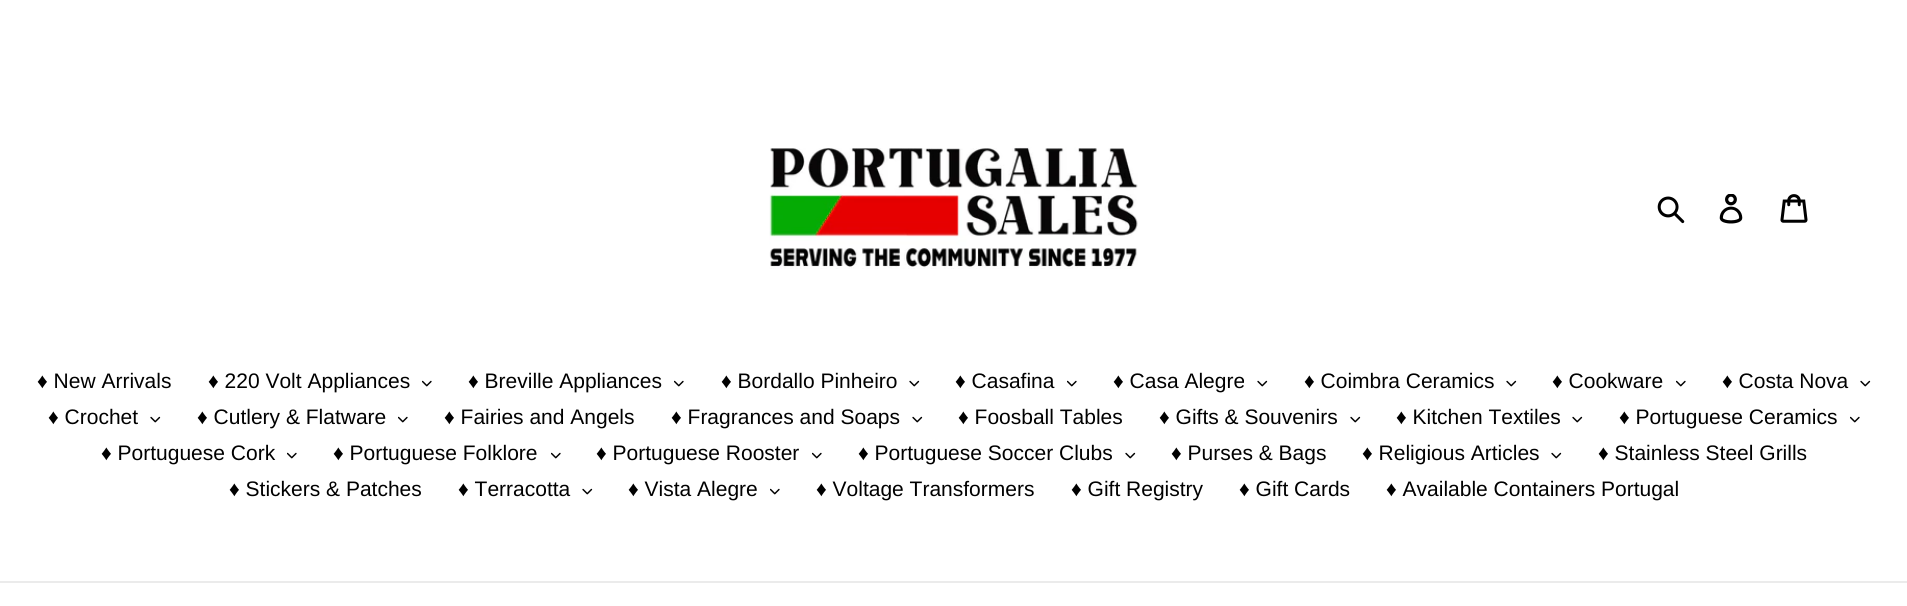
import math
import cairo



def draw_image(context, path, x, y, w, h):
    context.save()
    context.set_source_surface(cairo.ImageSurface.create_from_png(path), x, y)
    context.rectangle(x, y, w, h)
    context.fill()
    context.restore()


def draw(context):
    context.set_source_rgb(1, 1, 1)
    context.paint()
    draw_image(context, "images/1.png", 769, 147, 369, 122)
    draw_image(context, "images/2.png", 1657, 196, 28, 28)
    draw_image(context, "images/3.png", 1719, 194, 24, 30)
    draw_image(context, "images/4.png", 1780, 194, 28, 29)
    context.set_source_rgb(235 / 255, 235 / 255, 235 / 255)
    context.rectangle(0, 581, 1907, 2)
    context.fill()
    draw_image(context, "images/5.png", 422, 380, 10, 7)
    draw_image(context, "images/5.png", 674, 380, 10, 7)
    draw_image(context, "images/6.png", 909, 380, 11, 7)
    draw_image(context, "images/5.png", 1067, 380, 10, 7)
    draw_image(context, "images/6.png", 1257, 380, 11, 7)
    draw_image(context, "images/6.png", 1506, 380, 11, 7)
    draw_image(context, "images/5.png", 1676, 380, 10, 7)
    draw_image(context, "images/6.png", 1860, 380, 11, 7)
    draw_image(context, "images/6.png", 150, 416, 11, 7)
    draw_image(context, "images/5.png", 398, 416, 10, 7)
    draw_image(context, "images/6.png", 912, 416, 11, 7)
    draw_image(context, "images/6.png", 1350, 416, 11, 7)
    draw_image(context, "images/6.png", 1572, 416, 11, 7)
    draw_image(context, "images/5.png", 1850, 416, 10, 7)
    draw_image(context, "images/5.png", 287, 452, 10, 7)
    draw_image(context, "images/5.png", 551, 452, 10, 7)
    draw_image(context, "images/5.png", 812, 452, 10, 7)
    draw_image(context, "images/6.png", 1125, 452, 11, 7)
    draw_image(context, "images/6.png", 1551, 452, 11, 7)
    draw_image(context, "images/6.png", 582, 488, 11, 7)
    draw_image(context, "images/5.png", 770, 488, 10, 7)
    context.select_font_face("Liberation Sans")
    context.set_font_size(21)
    context.set_source_rgb(0, 0, 0)
    context.move_to(37, 388)
    context.show_text("♦ New Arrivals")
    context.move_to(208, 388)
    context.show_text("♦ 220 Volt Appliances")
    context.move_to(468, 388)
    context.show_text("♦ Breville Appliances")
    context.move_to(721, 388)
    context.show_text("♦ Bordallo Pinheiro")
    context.move_to(955, 388)
    context.show_text("♦ Casafina")
    context.move_to(1113, 388)
    context.show_text("♦ Casa Alegre")
    context.move_to(1304, 388)
    context.show_text("♦ Coimbra Ceramics")
    context.move_to(1552, 388)
    context.show_text("♦ Cookware")
    context.move_to(1722, 388)
    context.show_text("♦ Costa Nova")
    context.move_to(48, 424)
    context.show_text("♦ Crochet")
    context.move_to(197, 424)
    context.show_text("♦ Cutlery & Flatware")
    context.move_to(444, 424)
    context.show_text("♦ Fairies and Angels")
    context.move_to(671, 424)
    context.show_text("♦ Fragrances and Soaps")
    context.move_to(958, 424)
    context.show_text("♦ Foosball Tables")
    context.move_to(1159, 424)
    context.show_text("♦ Gifts & Souvenirs")
    context.move_to(1396, 424)
    context.show_text("♦ Kitchen Textiles")
    context.move_to(1619, 424)
    context.show_text("♦ Portuguese Ceramics")
    context.move_to(101, 460)
    context.show_text("♦ Portuguese Cork")
    context.move_to(333, 460)
    context.show_text("♦ Portuguese Folklore")
    context.move_to(596, 460)
    context.show_text("♦ Portuguese Rooster")
    context.move_to(858, 460)
    context.show_text("♦ Portuguese Soccer Clubs")
    context.move_to(1171, 460)
    context.show_text("♦ Purses & Bags")
    context.move_to(1362, 460)
    context.show_text("♦ Religious Articles")
    context.move_to(1598, 460)
    context.show_text("♦ Stainless Steel Grills")
    context.move_to(229, 496)
    context.show_text("♦ Stickers & Patches")
    context.move_to(458, 496)
    context.show_text("♦ Terracotta")
    context.move_to(628, 496)
    context.show_text("♦ Vista Alegre")
    context.move_to(816, 496)
    context.show_text("♦ Voltage Transformers")
    context.move_to(1071, 496)
    context.show_text("♦ Gift Registry")
    context.move_to(1239, 496)
    context.show_text("♦ Gift Cards")
    context.move_to(1386, 496)
    context.show_text("♦ Available Containers Portugal")


surface = cairo.ImageSurface(cairo.Format.RGB24, 1907, 606)
context = cairo.Context(surface)
options = cairo.FontOptions()
options.set_hint_metrics(cairo.HintMetrics.OFF)
options.set_hint_style(cairo.HintStyle.NONE)
context.set_font_options(options)
context.set_miter_limit(4)
draw(context)
surface.write_to_png("out.png")
